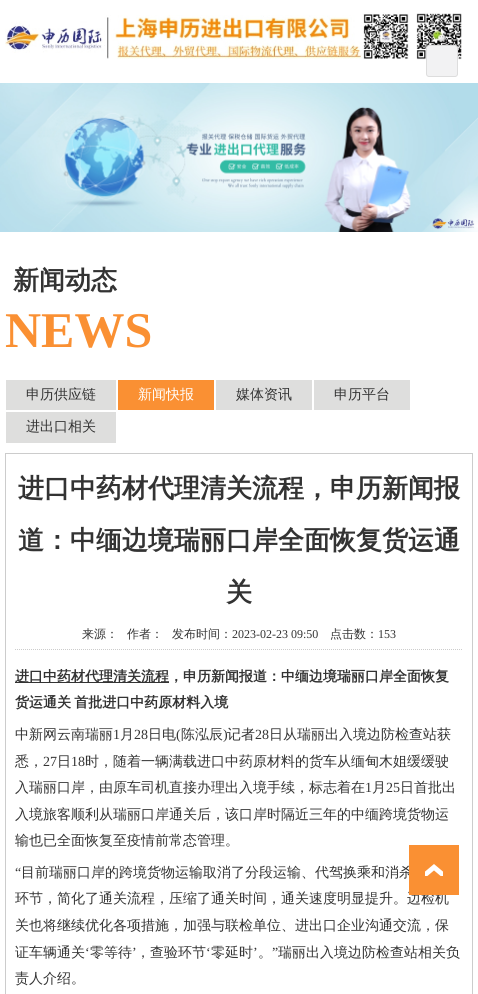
import math
import cairo



def draw_spaced(context, x, y, s, letter, word):
    context.move_to(x, y)
    for ch in s:
        context.show_text(ch)
        context.rel_move_to(letter + word * (ch == ' '), 0)


def rounded_rect(context, x, y, w, h, r):
    context.new_sub_path()
    for i, (u, v) in enumerate([(x + w - r, y + h - r), (x + r, y + h - r), (x + r, y + r), (x + w - r, y + r)]):
        context.arc(u, v, r, i * math.pi / 2, (i + 1) * math.pi / 2)
    context.close_path()


def draw_image(context, path, x, y, w, h):
    context.save()
    context.set_source_surface(cairo.ImageSurface.create_from_png(path), x, y)
    context.rectangle(x, y, w, h)
    context.fill()
    context.restore()


def draw(context):
    context.set_source_rgb(1, 1, 1)
    context.paint()
    draw_image(context, "images/1.png", 5, 12, 457, 48)
    context.set_source_rgb(242 / 255, 242 / 255, 243 / 255)
    rounded_rect(context, 426.5, 45.5, 31, 31, 2.5)
    context.fill_preserve()
    context.set_source_rgb(221 / 255, 221 / 255, 221 / 255)
    context.set_line_width(1)
    context.stroke()
    draw_image(context, "images/2.png", 0, 83, 478, 149)
    context.set_source_rgb(222 / 255, 222 / 255, 221 / 255)
    context.rectangle(6, 380, 110, 30)
    context.fill()
    context.set_source_rgb(250 / 255, 144 / 255, 51 / 255)
    context.rectangle(118, 380, 96, 30)
    context.fill()
    context.set_source_rgb(222 / 255, 222 / 255, 221 / 255)
    context.rectangle(216, 380, 96, 30)
    context.fill()
    context.rectangle(314, 380, 96, 30)
    context.fill()
    context.rectangle(6, 412, 110, 31)
    context.fill()
    context.rectangle(5.5, 453.5, 467, 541)
    context.set_source_rgb(204 / 255, 204 / 255, 204 / 255)
    context.stroke()
    context.new_path()
    context.move_to(15, 649.5)
    context.line_to(463, 649.5)
    context.set_dash([1, 1])
    context.stroke()
    context.set_source_rgb(51 / 255, 51 / 255, 51 / 255)
    context.rectangle(15, 682, 154, 1)
    context.fill()
    context.select_font_face("WenQuanYi Zen Hei", cairo.FontSlant.NORMAL, cairo.FontWeight.BOLD)
    context.set_font_size(26)
    context.move_to(13, 289)
    context.show_text("新闻动态")
    context.select_font_face("Liberation Serif", cairo.FontSlant.NORMAL, cairo.FontWeight.BOLD)
    context.set_font_size(50)
    context.set_source_rgb(250 / 255, 144 / 255, 51 / 255)
    context.move_to(5, 347)
    context.show_text("NEWS")
    context.select_font_face("WenQuanYi Zen Hei Medium")
    context.set_font_size(14)
    context.set_source_rgb(51 / 255, 51 / 255, 51 / 255)
    context.move_to(26, 399)
    context.show_text("申历供应链")
    context.set_source_rgb(1, 1, 1)
    context.move_to(138, 399)
    context.show_text("新闻快报")
    context.set_source_rgb(51 / 255, 51 / 255, 51 / 255)
    context.move_to(236, 399)
    context.show_text("媒体资讯")
    context.move_to(334, 399)
    context.show_text("申历平台")
    context.move_to(26, 431)
    context.show_text("进出口相关")
    context.select_font_face("WenQuanYi Zen Hei", cairo.FontSlant.NORMAL, cairo.FontWeight.BOLD)
    context.set_font_size(26)
    context.move_to(18, 497)
    context.show_text("进口中药材代理清关流程，申历新闻报")
    context.move_to(18, 549)
    context.show_text("道：中缅边境瑞丽口岸全面恢复货运通")
    context.move_to(226, 601)
    context.show_text("关")
    context.select_font_face("WenQuanYi Zen Hei Medium")
    context.set_font_size(12)
    context.move_to(82, 638)
    context.show_text("来源：")
    context.move_to(127, 638)
    context.show_text("作者：")
    context.move_to(172, 638)
    context.show_text("发布时间：")
    context.select_font_face("Liberation Serif")
    context.move_to(232, 638)
    context.show_text("2023-02-23 09:50")
    context.select_font_face("WenQuanYi Zen Hei Medium")
    context.move_to(330, 638)
    context.show_text("点击数：")
    context.select_font_face("Liberation Serif")
    context.move_to(378, 638)
    context.show_text("153")
    context.select_font_face("WenQuanYi Zen Hei", cairo.FontSlant.NORMAL, cairo.FontWeight.BOLD)
    context.set_font_size(14)
    context.move_to(15, 681)
    context.show_text("进口中药材代理清关流程，申历新闻报道：中缅边境瑞丽口岸全面恢复")
    draw_spaced(context, 15, 707, "货运通关 首批进口中药原材料入境", 0, -1)
    context.select_font_face("WenQuanYi Zen Hei Medium")
    context.move_to(15, 739)
    context.show_text("中新网云南瑞丽")
    context.select_font_face("Liberation Serif")
    context.move_to(113, 739)
    context.show_text("1")
    context.select_font_face("WenQuanYi Zen Hei Medium")
    context.move_to(120, 739)
    context.show_text("月")
    context.select_font_face("Liberation Serif")
    context.move_to(134, 739)
    context.show_text("28")
    context.select_font_face("WenQuanYi Zen Hei Medium")
    context.move_to(148, 739)
    context.show_text("日电")
    context.select_font_face("Liberation Serif")
    context.move_to(176, 739)
    context.show_text("(")
    context.select_font_face("WenQuanYi Zen Hei Medium")
    context.move_to(181, 739)
    context.show_text("陈泓辰")
    context.select_font_face("Liberation Serif")
    context.move_to(223, 739)
    context.show_text(")")
    context.select_font_face("WenQuanYi Zen Hei Medium")
    context.move_to(227, 739)
    context.show_text("记者")
    context.select_font_face("Liberation Serif")
    context.move_to(255, 739)
    context.show_text("28")
    context.select_font_face("WenQuanYi Zen Hei Medium")
    context.move_to(269, 739)
    context.show_text("日从瑞丽出入境边防检查站获")
    context.move_to(15, 766)
    context.show_text("悉，")
    context.select_font_face("Liberation Serif")
    context.move_to(43, 766)
    context.show_text("27")
    context.select_font_face("WenQuanYi Zen Hei Medium")
    context.move_to(57, 766)
    context.show_text("日")
    context.select_font_face("Liberation Serif")
    context.move_to(71, 766)
    context.show_text("18")
    context.select_font_face("WenQuanYi Zen Hei Medium")
    context.move_to(85, 766)
    context.show_text("时，随着一辆满载进口中药原材料的货车从缅甸木姐缓缓驶")
    context.move_to(15, 792)
    context.show_text("入瑞丽口岸，由原车司机直接办理出入境手续，标志着在")
    context.select_font_face("Liberation Serif")
    context.move_to(365, 792)
    context.show_text("1")
    context.select_font_face("WenQuanYi Zen Hei Medium")
    context.move_to(372, 792)
    context.show_text("月")
    context.select_font_face("Liberation Serif")
    context.move_to(386, 792)
    context.show_text("25")
    context.select_font_face("WenQuanYi Zen Hei Medium")
    context.move_to(400, 792)
    context.show_text("日首批出")
    context.move_to(15, 819)
    context.show_text("入境旅客顺利从瑞丽口岸通关后，该口岸时隔近三年的中缅跨境货物运")
    context.move_to(15, 845)
    context.show_text("输也已全面恢复至疫情前常态管理。")
    context.select_font_face("Liberation Serif")
    context.move_to(15, 877)
    context.show_text("“")
    context.select_font_face("WenQuanYi Zen Hei Medium")
    context.move_to(21, 877)
    context.show_text("目前瑞丽口岸的跨境货物运输取消了分段运输、代驾换乘和消杀")
    context.move_to(15, 903)
    context.show_text("环节，简化了通关流程，压缩了通关时间，通关速度明显提升。边检机")
    context.move_to(15, 930)
    context.show_text("关也将继续优化各项措施，加强与联检单位、进出口企业沟通交流，保")
    context.move_to(15, 957)
    context.show_text("证车辆通关")
    context.select_font_face("Liberation Serif")
    context.move_to(85, 957)
    context.show_text("‘")
    context.select_font_face("WenQuanYi Zen Hei Medium")
    context.move_to(90, 957)
    context.show_text("零等待")
    context.select_font_face("Liberation Serif")
    context.move_to(132, 957)
    context.show_text("’")
    context.select_font_face("WenQuanYi Zen Hei Medium")
    context.move_to(136, 957)
    context.show_text("，查验环节")
    context.select_font_face("Liberation Serif")
    context.move_to(206, 957)
    context.show_text("‘")
    context.select_font_face("WenQuanYi Zen Hei Medium")
    context.move_to(211, 957)
    context.show_text("零延时")
    context.select_font_face("Liberation Serif")
    context.move_to(253, 957)
    context.show_text("’")
    context.move_to(272, 957)
    context.show_text("”")
    context.select_font_face("WenQuanYi Zen Hei Medium")
    context.move_to(278, 957)
    context.show_text("瑞丽出入境边防检查站相关负")
    context.move_to(258, 957)
    context.show_text("。")
    context.move_to(15, 983)
    context.show_text("责人介绍。")
    context.set_source_rgb(250 / 255, 144 / 255, 51 / 255)
    context.rectangle(409, 845, 50, 50)
    context.fill()
    draw_image(context, "images/3.png", 425, 864, 18, 12)


surface = cairo.ImageSurface(cairo.Format.RGB24, 478, 994)
context = cairo.Context(surface)
options = cairo.FontOptions()
options.set_hint_metrics(cairo.HintMetrics.OFF)
options.set_hint_style(cairo.HintStyle.NONE)
context.set_font_options(options)
context.set_miter_limit(4)
draw(context)
surface.write_to_png("out.png")
